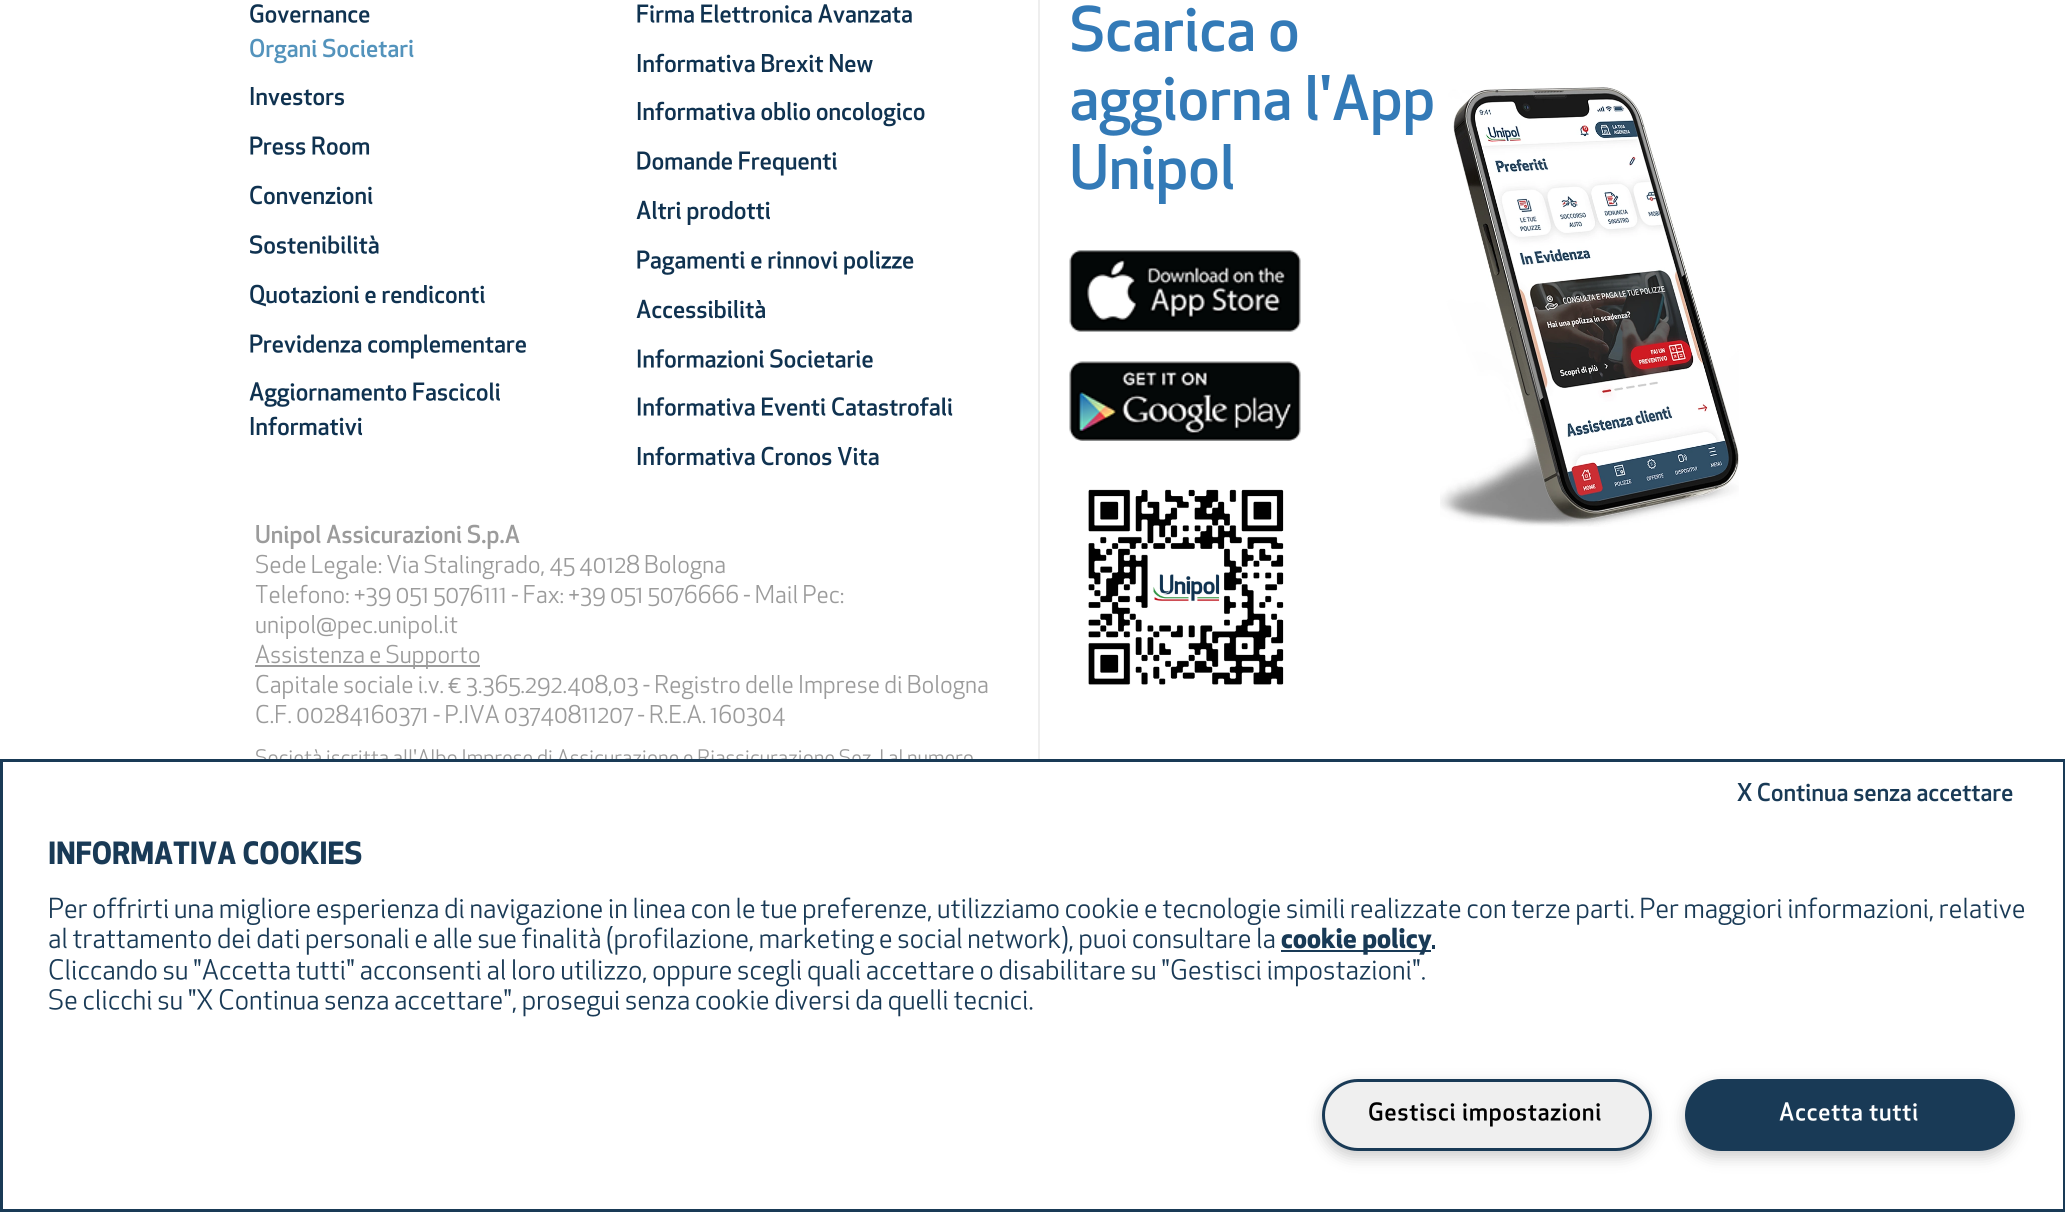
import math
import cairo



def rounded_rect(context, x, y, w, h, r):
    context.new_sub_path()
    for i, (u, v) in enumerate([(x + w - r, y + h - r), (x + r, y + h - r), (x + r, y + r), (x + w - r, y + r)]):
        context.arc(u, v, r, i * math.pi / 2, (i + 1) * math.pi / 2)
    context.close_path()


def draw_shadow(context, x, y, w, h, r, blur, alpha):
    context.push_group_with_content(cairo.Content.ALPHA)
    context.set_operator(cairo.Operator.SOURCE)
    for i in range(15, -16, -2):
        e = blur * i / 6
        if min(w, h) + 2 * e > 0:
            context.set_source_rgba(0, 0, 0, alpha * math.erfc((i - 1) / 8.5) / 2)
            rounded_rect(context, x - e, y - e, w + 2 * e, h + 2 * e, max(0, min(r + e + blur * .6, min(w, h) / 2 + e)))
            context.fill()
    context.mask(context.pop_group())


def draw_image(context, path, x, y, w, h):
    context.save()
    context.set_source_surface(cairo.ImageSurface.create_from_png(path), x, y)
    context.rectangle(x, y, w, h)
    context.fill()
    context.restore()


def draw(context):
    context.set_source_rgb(1, 1, 1)
    context.paint()
    draw_image(context, "images/1.png", 250, 4, 120, 19)
    draw_image(context, "images/2.png", 250, 38, 164, 26)
    draw_image(context, "images/3.png", 637, 4, 275, 19)
    draw_image(context, "images/4.png", 637, 53, 236, 20)
    draw_image(context, "images/5.png", 250, 87, 94, 19)
    draw_image(context, "images/6.png", 637, 101, 288, 26)
    draw_image(context, "images/7.png", 250, 136, 120, 19)
    draw_image(context, "images/8.png", 637, 151, 200, 25)
    draw_image(context, "images/9.png", 250, 185, 123, 20)
    draw_image(context, "images/10.png", 636, 200, 134, 25)
    draw_image(context, "images/11.png", 250, 235, 129, 19)
    draw_image(context, "images/12.png", 637, 250, 277, 25)
    draw_image(context, "images/13.png", 250, 284, 235, 23)
    draw_image(context, "images/14.png", 636, 299, 129, 20)
    draw_image(context, "images/15.png", 250, 334, 276, 25)
    draw_image(context, "images/16.png", 637, 349, 236, 19)
    draw_image(context, "images/17.png", 249, 382, 251, 25)
    draw_image(context, "images/18.png", 250, 416, 113, 20)
    draw_image(context, "images/19.png", 637, 397, 316, 19)
    draw_image(context, "images/20.png", 637, 446, 242, 20)
    draw_image(context, "images/21.png", 256, 524, 264, 25)
    draw_image(context, "images/22.png", 256, 554, 469, 26)
    draw_image(context, "images/23.png", 255, 584, 589, 23)
    draw_image(context, "images/24.png", 256, 615, 202, 24)
    context.set_source_rgb(155 / 255, 155 / 255, 155 / 255)
    context.rectangle(255, 665, 225, 2)
    context.fill()
    draw_image(context, "images/25.png", 255, 644, 225, 25)
    draw_image(context, "images/26.png", 256, 674, 732, 26)
    draw_image(context, "images/27.png", 256, 704, 529, 23)
    draw_image(context, "images/28.png", 256, 749, 717, 10)
    context.set_source_rgb(238 / 255, 238 / 255, 238 / 255)
    context.rectangle(1038, 0, 2, 759)
    context.fill()
    draw_image(context, "images/29.png", 1072, 5, 226, 47)
    draw_image(context, "images/30.png", 1071, 74, 362, 62)
    draw_image(context, "images/31.png", 1072, 144, 161, 60)
    draw_image(context, "images/32.png", 1069, 250, 232, 82)
    draw_image(context, "images/33.png", 1069, 361, 232, 80)
    draw_image(context, "images/34.png", 1088, 489, 196, 196)
    draw_image(context, "images/35.png", 1440, 87, 299, 440)
    context.rectangle(1.5, 760.5, 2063, 450)
    context.set_source_rgb(25 / 255, 58 / 255, 86 / 255)
    context.set_line_width(3)
    context.stroke()
    draw_image(context, "images/36.png", 1737, 783, 15, 18)
    draw_image(context, "images/37.png", 1758, 782, 255, 20)
    draw_image(context, "images/38.png", 49, 841, 313, 24)
    draw_image(context, "images/39.png", 50, 897, 1975, 28)
    draw_image(context, "images/40.png", 49, 926, 1226, 29)
    context.rectangle(1281, 950, 150, 2)
    context.fill()
    draw_image(context, "images/41.png", 1281, 927, 151, 28)
    context.rectangle(1432, 945, 3, 4)
    context.fill()
    draw_image(context, "images/42.png", 49, 959, 1376, 28)
    draw_image(context, "images/43.png", 49, 989, 984, 28)
    context.set_source_rgb(129 / 255, 129 / 255, 129 / 255)
    draw_shadow(context, 1322, 1085, 330, 72, 36, 7.5, 0.4)
    context.set_source_rgb(239 / 255, 239 / 255, 239 / 255)
    rounded_rect(context, 1323.5, 1080.5, 327, 69, 34.5)
    context.fill_preserve()
    context.set_source_rgb(25 / 255, 58 / 255, 86 / 255)
    context.stroke()
    draw_image(context, "images/44.png", 1369, 1102, 232, 25)
    context.set_source_rgb(129 / 255, 129 / 255, 129 / 255)
    draw_shadow(context, 1685, 1085, 330, 72, 36, 7.5, 0.4)
    context.set_source_rgb(25 / 255, 58 / 255, 86 / 255)
    rounded_rect(context, 1686.5, 1080.5, 327, 69, 34.5)
    context.fill_preserve()
    context.stroke()
    draw_image(context, "images/45.png", 1779, 1102, 139, 19)


surface = cairo.ImageSurface(cairo.Format.RGB24, 2065, 1212)
context = cairo.Context(surface)
options = cairo.FontOptions()
options.set_hint_metrics(cairo.HintMetrics.OFF)
options.set_hint_style(cairo.HintStyle.NONE)
context.set_font_options(options)
context.set_miter_limit(4)
draw(context)
surface.write_to_png("out.png")
